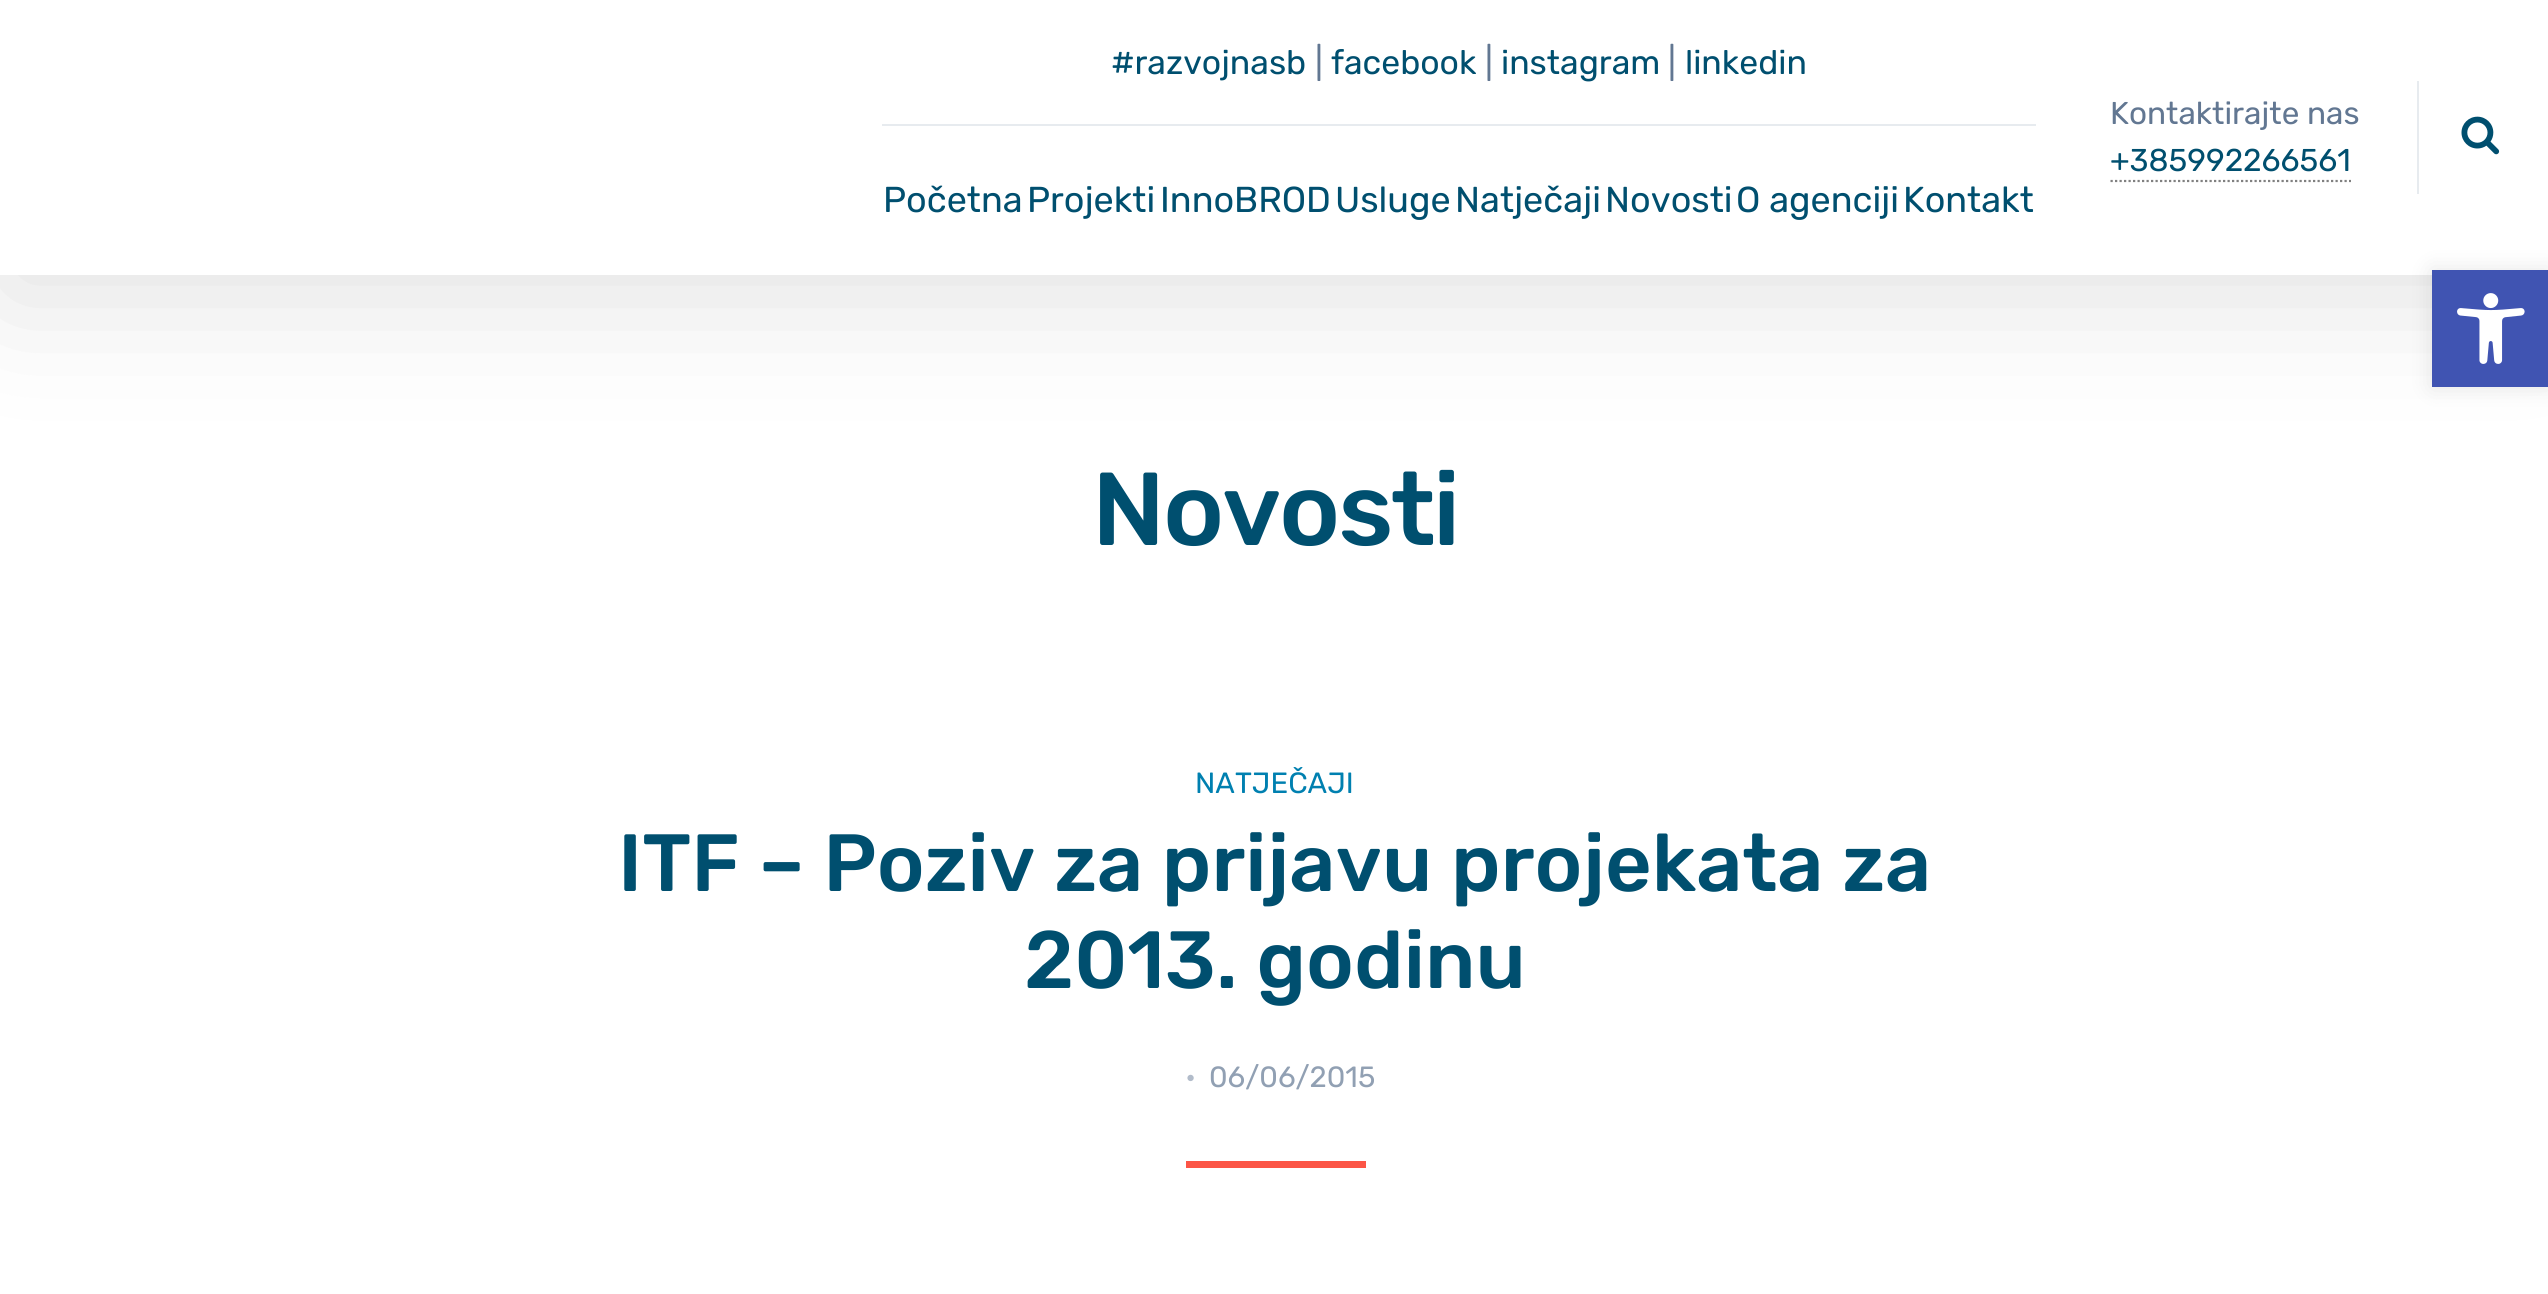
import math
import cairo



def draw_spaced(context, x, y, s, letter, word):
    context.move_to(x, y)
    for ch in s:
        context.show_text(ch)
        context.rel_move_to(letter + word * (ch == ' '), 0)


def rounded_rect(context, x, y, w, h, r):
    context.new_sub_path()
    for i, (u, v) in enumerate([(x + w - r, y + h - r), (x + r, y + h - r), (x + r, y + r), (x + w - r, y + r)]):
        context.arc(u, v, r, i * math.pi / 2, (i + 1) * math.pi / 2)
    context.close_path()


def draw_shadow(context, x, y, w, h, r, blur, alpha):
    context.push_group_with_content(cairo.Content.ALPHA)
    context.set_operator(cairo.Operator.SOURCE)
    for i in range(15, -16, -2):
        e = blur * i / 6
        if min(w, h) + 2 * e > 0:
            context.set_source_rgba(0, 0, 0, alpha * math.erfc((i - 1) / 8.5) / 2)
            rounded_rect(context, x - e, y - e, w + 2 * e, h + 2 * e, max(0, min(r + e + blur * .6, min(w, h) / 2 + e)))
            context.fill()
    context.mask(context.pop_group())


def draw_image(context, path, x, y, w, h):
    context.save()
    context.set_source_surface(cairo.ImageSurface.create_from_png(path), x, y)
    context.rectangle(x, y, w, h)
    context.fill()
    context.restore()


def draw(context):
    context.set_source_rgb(1, 1, 1)
    context.paint()
    context.set_source_rgb(0, 0, 0)
    draw_shadow(context, 0, 23, 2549, 274, 0, 67.5, 0.12)
    context.set_source_rgb(1, 1, 1)
    context.rectangle(0, 0, 2548, 275)
    context.fill()
    context.set_source_rgb(231 / 255, 235 / 255, 239 / 255)
    context.rectangle(882, 124, 1154, 2)
    context.fill()
    context.new_path()
    context.move_to(2110.5, 181)
    context.line_to(2351, 181)
    context.set_source_rgb(128 / 255, 128 / 255, 128 / 255)
    context.set_line_width(2.2)
    context.set_dash([2.25, 2.25])
    context.stroke()
    context.set_source_rgb(231 / 255, 235 / 255, 239 / 255)
    context.rectangle(2417, 81, 2, 113)
    context.fill()
    draw_image(context, "images/1.png", 2461, 116, 39, 39)
    context.set_source_rgb(252 / 255, 85 / 255, 70 / 255)
    context.rectangle(1186, 1161, 180, 7)
    context.fill()
    context.set_source_rgb(0, 0, 0)
    draw_shadow(context, 2432, 270, 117, 117, 0, 11, 0.1)
    context.set_source_rgb(64 / 255, 84 / 255, 178 / 255)
    context.rectangle(2432, 270, 116, 117)
    context.fill()
    draw_image(context, "images/2.png", 2457, 293, 68, 71)
    context.select_font_face("Rubik")
    context.set_font_size(33.75)
    context.set_source_rgb(0, 79 / 255, 111 / 255)
    context.move_to(1111, 74)
    context.show_text("#razvojnasb")
    context.set_source_rgb(98 / 255, 119 / 255, 146 / 255)
    context.move_to(1315, 74)
    context.show_text("|")
    context.set_source_rgb(0, 79 / 255, 111 / 255)
    context.move_to(1331, 74)
    context.show_text("facebook")
    context.set_source_rgb(98 / 255, 119 / 255, 146 / 255)
    context.move_to(1485, 74)
    context.show_text("|")
    context.set_source_rgb(0, 79 / 255, 111 / 255)
    context.move_to(1501, 74)
    context.show_text("instagram")
    context.set_source_rgb(98 / 255, 119 / 255, 146 / 255)
    context.move_to(1668, 74)
    context.show_text("|")
    context.set_source_rgb(0, 79 / 255, 111 / 255)
    context.move_to(1685, 74)
    context.show_text("linkedin")
    context.set_font_size(36)
    context.move_to(883, 212)
    context.show_text("Početna")
    context.move_to(1027, 212)
    context.show_text("Projekti")
    context.move_to(1160, 212)
    context.show_text("InnoBROD")
    context.move_to(1335, 212)
    context.show_text("Usluge")
    context.move_to(1455, 212)
    context.show_text("Natječaji")
    context.move_to(1605, 212)
    context.show_text("Novosti")
    context.move_to(1736, 212)
    context.show_text("O agenciji")
    context.move_to(1903, 212)
    context.show_text("Kontakt")
    context.set_font_size(31.5)
    context.set_source_rgb(98 / 255, 119 / 255, 146 / 255)
    context.move_to(2110, 124)
    context.show_text("Kontaktirajte nas")
    context.set_source_rgb(0, 79 / 255, 111 / 255)
    context.move_to(2110, 171)
    context.show_text("+385992266561")
    context.select_font_face("Rubik Medium")
    context.set_font_size(103.5)
    draw_spaced(context, 1092, 545, "Novosti", -2.25, 0)
    context.select_font_face("Rubik")
    context.set_font_size(29.25)
    context.set_source_rgb(0, 128 / 255, 176 / 255)
    context.move_to(1195, 793)
    context.show_text("NATJEČAJI")
    context.select_font_face("Rubik Medium")
    context.set_font_size(81)
    context.set_source_rgb(0, 79 / 255, 111 / 255)
    context.move_to(618, 891)
    context.show_text("ITF – Poziv za prijavu projekata za")
    context.move_to(1024, 988)
    context.show_text("2013. godinu")
    context.select_font_face("Rubik")
    context.set_font_size(29.25)
    context.set_source_rgb(178 / 255, 188 / 255, 202 / 255)
    context.move_to(1185, 1087)
    context.show_text("•")
    context.set_source_rgb(145 / 255, 160 / 255, 179 / 255)
    context.move_to(1209, 1087)
    context.show_text("06/06/2015")


surface = cairo.ImageSurface(cairo.Format.RGB24, 2548, 1294)
context = cairo.Context(surface)
options = cairo.FontOptions()
options.set_hint_metrics(cairo.HintMetrics.OFF)
options.set_hint_style(cairo.HintStyle.NONE)
context.set_font_options(options)
context.set_miter_limit(4)
draw(context)
surface.write_to_png("out.png")
